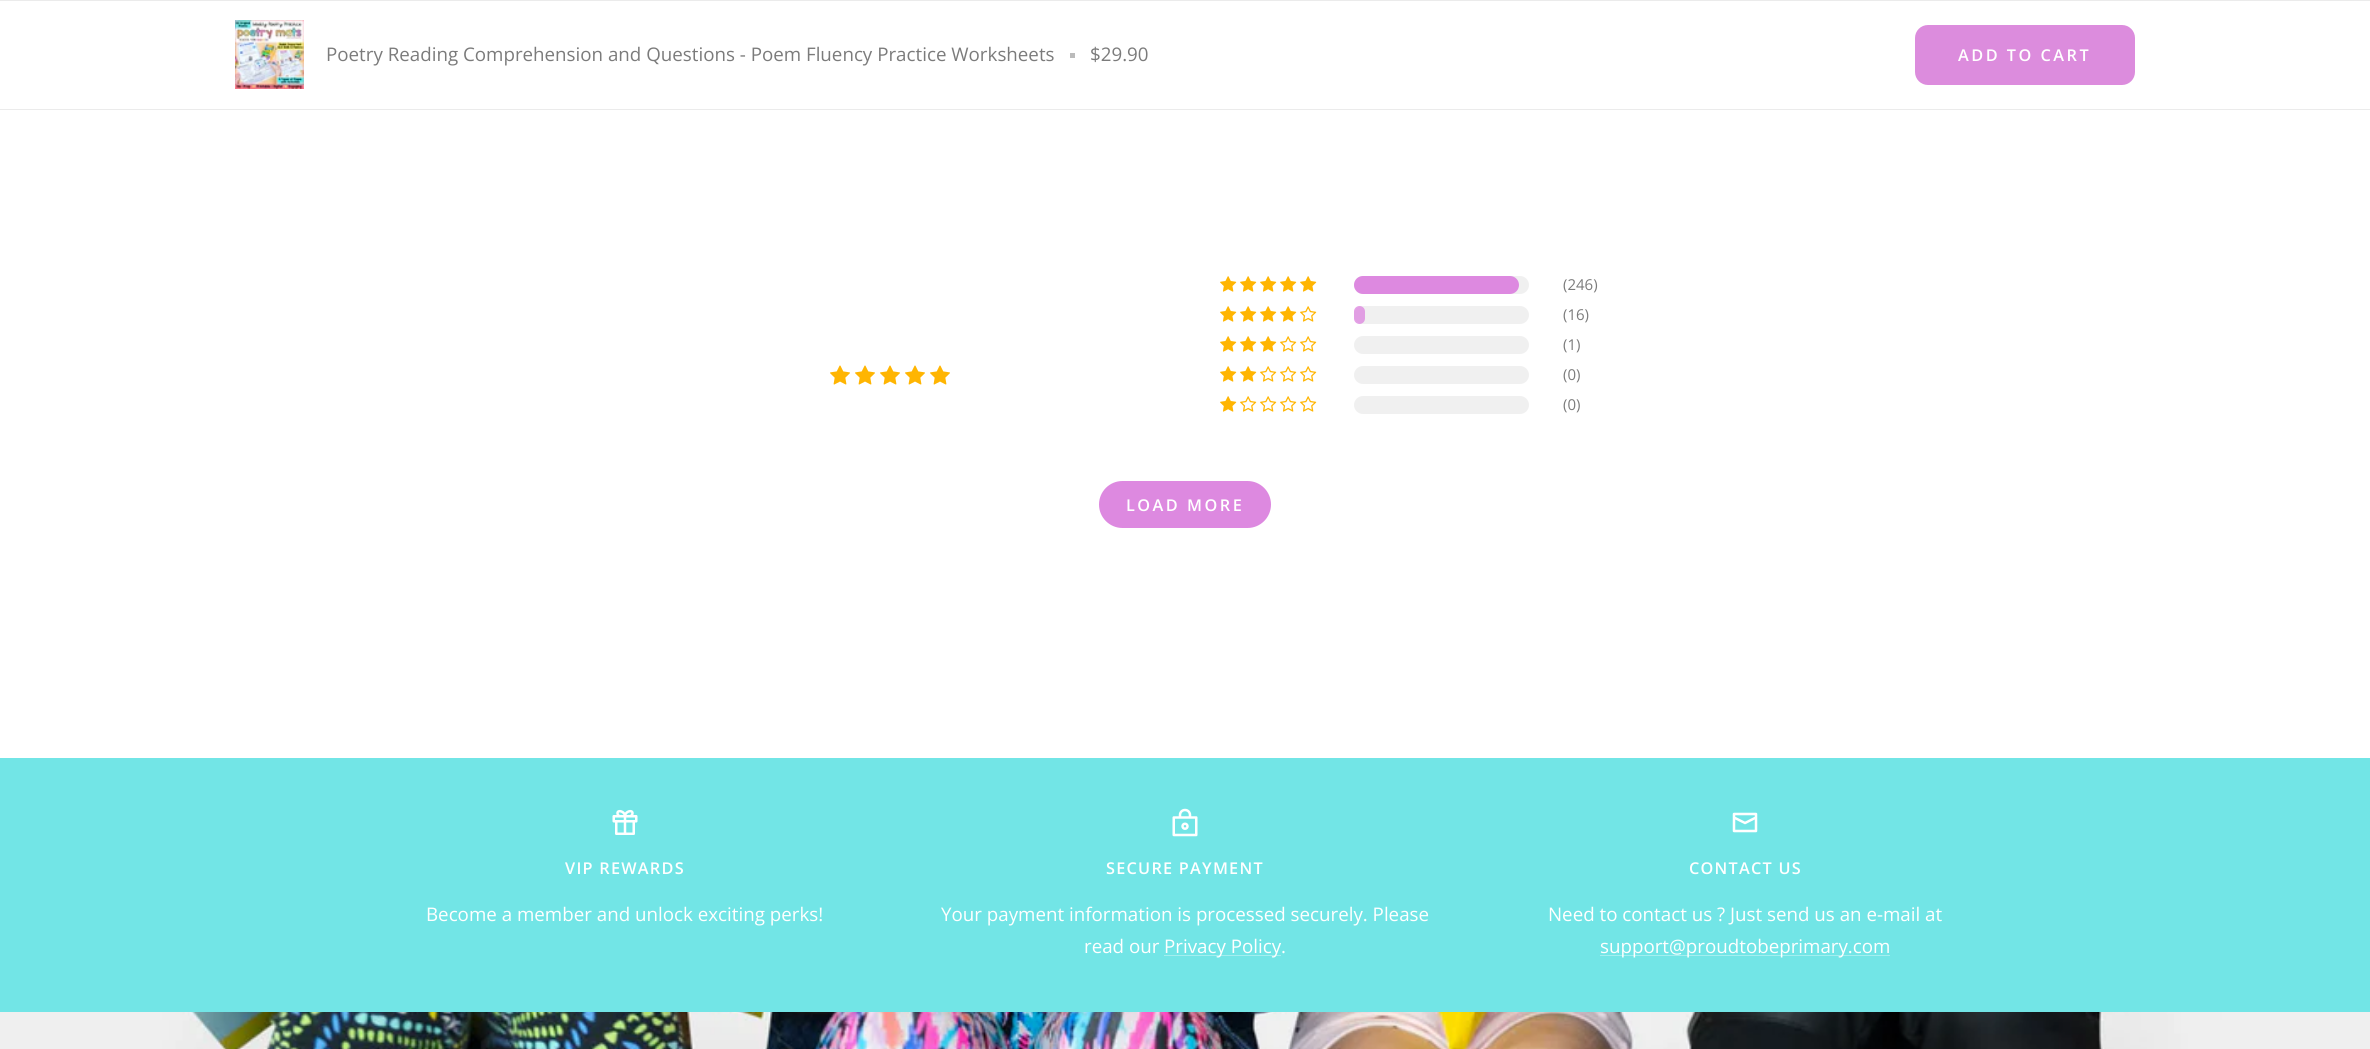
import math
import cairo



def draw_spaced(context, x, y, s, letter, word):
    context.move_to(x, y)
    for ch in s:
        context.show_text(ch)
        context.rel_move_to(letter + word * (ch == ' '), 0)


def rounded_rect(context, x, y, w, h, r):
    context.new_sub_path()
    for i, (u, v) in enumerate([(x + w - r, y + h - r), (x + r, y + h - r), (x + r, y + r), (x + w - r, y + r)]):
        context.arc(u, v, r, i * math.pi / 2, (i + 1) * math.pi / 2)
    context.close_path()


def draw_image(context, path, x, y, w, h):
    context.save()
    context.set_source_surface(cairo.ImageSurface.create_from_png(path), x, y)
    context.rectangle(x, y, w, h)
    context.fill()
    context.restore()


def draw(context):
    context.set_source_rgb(1, 1, 1)
    context.paint()
    context.set_source_rgb(235 / 255, 235 / 255, 235 / 255)
    context.rectangle(0, 0, 2370, 1)
    context.fill()
    context.rectangle(0, 109, 2370, 1)
    context.fill()
    draw_image(context, "images/1.png", 235, 20, 69, 69)
    context.set_source_rgb(187 / 255, 187 / 255, 187 / 255)
    context.rectangle(1070, 53, 5, 5)
    context.fill()
    context.set_source_rgb(220 / 255, 140 / 255, 221 / 255)
    rounded_rect(context, 1915, 25, 220, 60, 13)
    context.fill()
    draw_image(context, "images/2.png", 830, 365, 20, 20)
    draw_image(context, "images/2.png", 855, 365, 20, 20)
    draw_image(context, "images/2.png", 880, 365, 20, 20)
    draw_image(context, "images/2.png", 905, 365, 20, 20)
    draw_image(context, "images/2.png", 930, 365, 20, 20)
    draw_image(context, "images/3.png", 1220, 276, 17, 16)
    draw_image(context, "images/3.png", 1240, 276, 17, 16)
    draw_image(context, "images/3.png", 1260, 276, 17, 16)
    draw_image(context, "images/3.png", 1280, 276, 17, 16)
    draw_image(context, "images/3.png", 1300, 276, 17, 16)
    context.set_source_rgb(240 / 255, 240 / 255, 240 / 255)
    rounded_rect(context, 1354, 276, 175, 18, 9)
    context.fill()
    context.set_source_rgb(221 / 255, 137 / 255, 224 / 255)
    rounded_rect(context, 1354, 276, 165, 18, 9)
    context.fill()
    draw_image(context, "images/3.png", 1220, 306, 17, 16)
    draw_image(context, "images/3.png", 1240, 306, 17, 16)
    draw_image(context, "images/3.png", 1260, 306, 17, 16)
    draw_image(context, "images/3.png", 1280, 306, 17, 16)
    draw_image(context, "images/4.png", 1300, 306, 17, 16)
    context.set_source_rgb(240 / 255, 240 / 255, 240 / 255)
    rounded_rect(context, 1354, 306, 175, 18, 9)
    context.fill()
    context.set_source_rgba(221 / 255, 137 / 255, 224 / 255, 0.8)
    rounded_rect(context, 1354, 306, 11, 18, 5.5)
    context.fill()
    draw_image(context, "images/3.png", 1220, 336, 17, 16)
    draw_image(context, "images/3.png", 1240, 336, 17, 16)
    draw_image(context, "images/3.png", 1260, 336, 17, 16)
    draw_image(context, "images/4.png", 1280, 336, 17, 16)
    draw_image(context, "images/4.png", 1300, 336, 17, 16)
    context.set_source_rgb(240 / 255, 240 / 255, 240 / 255)
    rounded_rect(context, 1354, 336, 175, 18, 9)
    context.fill()
    draw_image(context, "images/3.png", 1220, 366, 17, 16)
    draw_image(context, "images/3.png", 1240, 366, 17, 16)
    draw_image(context, "images/4.png", 1260, 366, 17, 16)
    draw_image(context, "images/4.png", 1280, 366, 17, 16)
    draw_image(context, "images/4.png", 1300, 366, 17, 16)
    rounded_rect(context, 1354, 366, 175, 18, 9)
    context.fill()
    draw_image(context, "images/3.png", 1220, 396, 17, 16)
    draw_image(context, "images/4.png", 1240, 396, 17, 16)
    draw_image(context, "images/4.png", 1260, 396, 17, 16)
    draw_image(context, "images/4.png", 1280, 396, 17, 16)
    draw_image(context, "images/4.png", 1300, 396, 17, 16)
    rounded_rect(context, 1354, 396, 175, 18, 9)
    context.fill()
    context.set_source_rgb(221 / 255, 137 / 255, 224 / 255)
    rounded_rect(context, 1100.5, 482.5, 169, 44, 22)
    context.fill_preserve()
    context.set_line_width(3)
    context.stroke()
    context.set_source_rgb(114 / 255, 229 / 255, 230 / 255)
    context.rectangle(0, 758, 2370, 254)
    context.fill()
    draw_image(context, "images/5.png", 612, 809, 26, 26)
    draw_image(context, "images/6.png", 1172, 808, 26, 29)
    context.set_source_rgb(163 / 255, 238 / 255, 239 / 255)
    context.rectangle(1164, 955, 117, 1)
    context.fill()
    context.new_path()
    context.move_to(1756, 817.5)
    context.line_to(1756, 814)
    context.line_to(1734, 814)
    context.line_to(1734, 817.5)
    context.move_to(1756, 817.5)
    context.line_to(1756, 831)
    context.line_to(1734, 831)
    context.line_to(1734, 817.5)
    context.move_to(1756, 817.5)
    context.line_to(1745, 823)
    context.line_to(1734, 817.5)
    context.set_source_rgb(1, 1, 1)
    context.set_line_width(2.5)
    context.set_line_cap(cairo.LineCap.ROUND)
    context.set_line_join(cairo.LineJoin.ROUND)
    context.stroke()
    context.set_source_rgb(163 / 255, 238 / 255, 239 / 255)
    context.rectangle(1600, 955, 290, 1)
    context.fill()
    draw_image(context, "images/7.png", 0, 1012, 2370, 37)
    context.select_font_face("Open Sans")
    context.set_font_size(18.75)
    context.set_source_rgb(123 / 255, 123 / 255, 123 / 255)
    context.move_to(326, 61)
    context.show_text("Poetry Reading Comprehension and Questions - Poem Fluency Practice Worksheets")
    context.move_to(1090, 61)
    context.show_text("$29.90")
    context.select_font_face("Open Sans SemiBold")
    context.set_font_size(16.25)
    context.set_source_rgb(1, 1, 1)
    draw_spaced(context, 1958, 61, "ADD TO CART", 2.5, 0)
    context.select_font_face("Open Sans")
    context.set_font_size(15)
    context.set_source_rgb(123 / 255, 123 / 255, 123 / 255)
    context.move_to(1563, 290)
    context.show_text("(246)")
    context.move_to(1563, 320)
    context.show_text("(16)")
    context.move_to(1563, 350)
    context.show_text("(1)")
    context.move_to(1563, 380)
    context.show_text("(0)")
    context.move_to(1563, 410)
    context.show_text("(0)")
    context.select_font_face("Open Sans SemiBold")
    context.set_font_size(16.25)
    context.set_source_rgb(1, 1, 1)
    draw_spaced(context, 1126, 511, "LOAD MORE", 2.5, 0)
    draw_spaced(context, 565, 874, "VIP REWARDS", 1.25, 0)
    context.select_font_face("Open Sans")
    context.set_font_size(18.75)
    context.move_to(426, 921)
    context.show_text("Become a member and unlock exciting perks!")
    context.select_font_face("Open Sans SemiBold")
    context.set_font_size(16.25)
    draw_spaced(context, 1106, 874, "SECURE PAYMENT", 1.25, 0)
    context.select_font_face("Open Sans")
    context.set_font_size(18.75)
    context.move_to(941, 921)
    context.show_text("Your payment information is processed securely. Please")
    context.move_to(1084, 953)
    context.show_text("read our")
    context.move_to(1164, 953)
    context.show_text("Privacy Policy.")
    context.select_font_face("Open Sans SemiBold")
    context.set_font_size(16.25)
    draw_spaced(context, 1689, 874, "CONTACT US", 1.25, 0)
    context.select_font_face("Open Sans")
    context.set_font_size(18.75)
    context.move_to(1548, 921)
    context.show_text("Need to contact us ? Just send us an e-mail at")
    context.move_to(1600, 953)
    context.show_text("support@proudtobeprimary.com")


surface = cairo.ImageSurface(cairo.Format.RGB24, 2370, 1049)
context = cairo.Context(surface)
options = cairo.FontOptions()
options.set_hint_metrics(cairo.HintMetrics.OFF)
options.set_hint_style(cairo.HintStyle.NONE)
context.set_font_options(options)
context.set_miter_limit(4)
draw(context)
surface.write_to_png("out.png")
